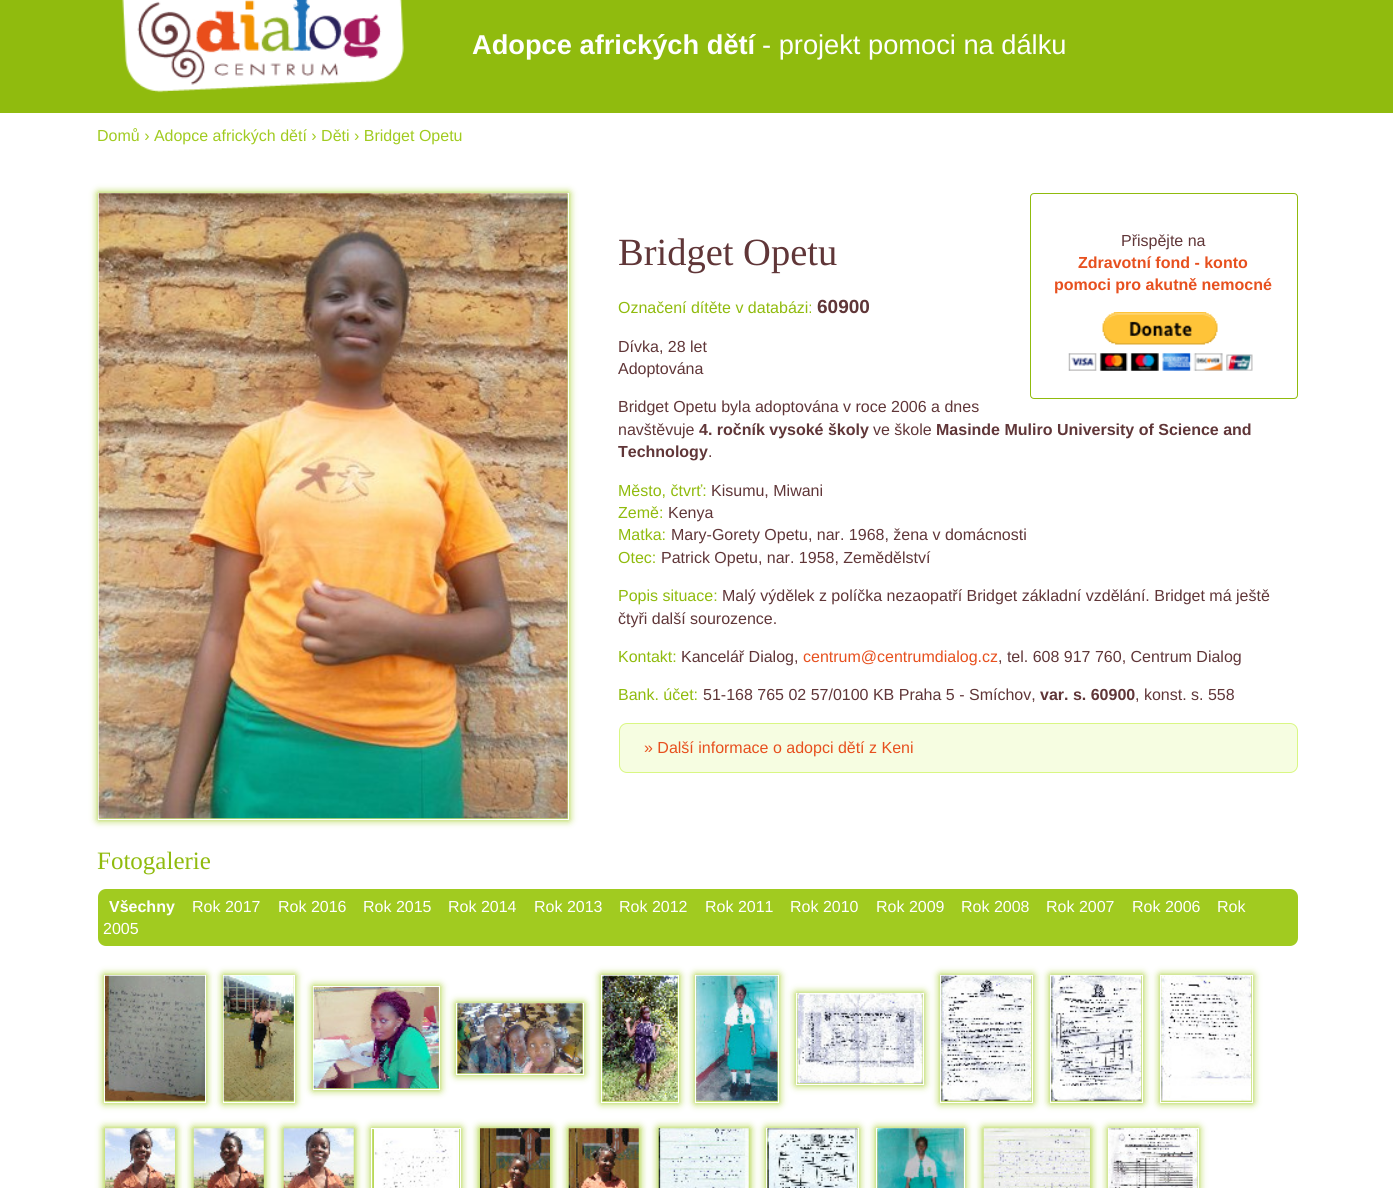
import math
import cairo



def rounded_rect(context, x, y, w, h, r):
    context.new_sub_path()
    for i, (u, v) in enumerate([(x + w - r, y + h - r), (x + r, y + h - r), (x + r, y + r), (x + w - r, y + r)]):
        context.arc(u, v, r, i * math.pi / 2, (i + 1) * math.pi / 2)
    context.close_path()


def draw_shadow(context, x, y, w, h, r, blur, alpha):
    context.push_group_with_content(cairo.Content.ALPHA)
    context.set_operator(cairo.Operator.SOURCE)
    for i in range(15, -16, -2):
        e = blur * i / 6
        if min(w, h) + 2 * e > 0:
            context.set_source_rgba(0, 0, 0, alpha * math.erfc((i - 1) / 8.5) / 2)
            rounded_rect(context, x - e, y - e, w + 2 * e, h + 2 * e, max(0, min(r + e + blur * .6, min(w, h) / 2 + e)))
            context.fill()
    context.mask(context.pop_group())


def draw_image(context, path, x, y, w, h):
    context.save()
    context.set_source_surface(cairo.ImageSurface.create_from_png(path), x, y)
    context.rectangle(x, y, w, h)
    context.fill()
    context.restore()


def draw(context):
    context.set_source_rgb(1, 1, 1)
    context.paint()
    context.set_source_rgb(144 / 255, 187 / 255, 14 / 255)
    context.rectangle(0, 0, 1393, 113)
    context.fill()
    draw_image(context, "images/1.png", 122, 0, 282, 93)
    context.set_source_rgb(161 / 255, 203 / 255, 32 / 255)
    draw_shadow(context, 98, 193, 471, 627, 0, 4, 1)
    context.rectangle(98.5, 193.5, 470, 626)
    context.set_source_rgb(1, 1, 1)
    context.set_line_width(1)
    context.stroke()
    draw_image(context, "images/2.png", 98, 193, 470, 626)
    rounded_rect(context, 1030.5, 193.5, 267, 205, 3.5)
    context.set_source_rgb(144 / 255, 187 / 255, 13 / 255)
    context.stroke()
    draw_image(context, "images/3.png", 1068, 312, 185, 59)
    context.set_source_rgb(246 / 255, 253 / 255, 225 / 255)
    rounded_rect(context, 619.5, 723.5, 678, 49, 7.5)
    context.fill_preserve()
    context.set_source_rgb(217 / 255, 247 / 255, 131 / 255)
    context.stroke()
    context.set_source_rgb(161 / 255, 203 / 255, 32 / 255)
    rounded_rect(context, 98, 889, 1200, 57, 8)
    context.fill()
    context.set_source_rgb(161 / 255, 203 / 255, 32 / 255)
    draw_shadow(context, 104, 975, 102, 128, 0, 4, 1)
    context.rectangle(104.5, 975.5, 101, 127)
    context.set_source_rgb(1, 1, 1)
    context.stroke()
    draw_image(context, "images/4.png", 105, 975, 100, 126)
    context.set_source_rgb(161 / 255, 203 / 255, 32 / 255)
    draw_shadow(context, 223, 975, 72, 128, 0, 4, 1)
    context.rectangle(223.5, 975.5, 71, 127)
    context.set_source_rgb(1, 1, 1)
    context.stroke()
    draw_image(context, "images/5.png", 223, 975, 71, 126)
    context.set_source_rgb(161 / 255, 203 / 255, 32 / 255)
    draw_shadow(context, 313, 986, 127, 104, 0, 4, 1)
    context.rectangle(313.5, 986.5, 126, 103)
    context.set_source_rgb(1, 1, 1)
    context.stroke()
    draw_image(context, "images/6.png", 313, 987, 126, 102)
    context.set_source_rgb(161 / 255, 203 / 255, 32 / 255)
    draw_shadow(context, 456, 1003, 128, 72, 0, 4, 1)
    context.rectangle(456.5, 1003.5, 127, 71)
    context.set_source_rgb(1, 1, 1)
    context.stroke()
    draw_image(context, "images/7.png", 457, 1003, 126, 71)
    context.set_source_rgb(161 / 255, 203 / 255, 32 / 255)
    draw_shadow(context, 601, 975, 78, 128, 0, 4, 1)
    context.rectangle(601.5, 975.5, 77, 127)
    context.set_source_rgb(1, 1, 1)
    context.stroke()
    draw_image(context, "images/8.png", 602, 975, 76, 126)
    context.set_source_rgb(161 / 255, 203 / 255, 32 / 255)
    draw_shadow(context, 695, 975, 84, 128, 0, 4, 1)
    context.rectangle(695.5, 975.5, 83, 127)
    context.set_source_rgb(1, 1, 1)
    context.stroke()
    draw_image(context, "images/9.png", 696, 975, 82, 126)
    context.set_source_rgb(161 / 255, 203 / 255, 32 / 255)
    draw_shadow(context, 796, 993, 128, 92, 0, 4, 1)
    context.rectangle(796.5, 993.5, 127, 91)
    context.set_source_rgb(1, 1, 1)
    context.stroke()
    draw_image(context, "images/10.png", 797, 993, 126, 91)
    context.set_source_rgb(161 / 255, 203 / 255, 32 / 255)
    draw_shadow(context, 940, 975, 93, 128, 0, 4, 1)
    context.rectangle(940.5, 975.5, 92, 127)
    context.set_source_rgb(1, 1, 1)
    context.stroke()
    draw_image(context, "images/11.png", 941, 975, 91, 126)
    context.set_source_rgb(161 / 255, 203 / 255, 32 / 255)
    draw_shadow(context, 1050, 975, 93, 128, 0, 4, 1)
    context.rectangle(1050.5, 975.5, 92, 127)
    context.set_source_rgb(1, 1, 1)
    context.stroke()
    draw_image(context, "images/12.png", 1051, 975, 91, 126)
    context.set_source_rgb(161 / 255, 203 / 255, 32 / 255)
    draw_shadow(context, 1160, 975, 93, 128, 0, 4, 1)
    context.rectangle(1160.5, 975.5, 92, 127)
    context.set_source_rgb(1, 1, 1)
    context.stroke()
    draw_image(context, "images/13.png", 1161, 975, 91, 126)
    context.set_source_rgb(161 / 255, 203 / 255, 32 / 255)
    draw_shadow(context, 104, 1128, 72, 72, 0, 4, 1)
    draw_image(context, "images/14.png", 105, 1128, 70, 60)
    draw_shadow(context, 193, 1128, 72, 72, 0, 4, 1)
    draw_image(context, "images/15.png", 193, 1128, 71, 60)
    draw_shadow(context, 283, 1128, 72, 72, 0, 4, 1)
    draw_image(context, "images/16.png", 283, 1128, 71, 60)
    draw_shadow(context, 371, 1128, 90, 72, 0, 4, 1)
    context.rectangle(371.5, 1128.5, 89, 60)
    context.set_source_rgb(1, 1, 1)
    context.stroke()
    draw_image(context, "images/17.png", 374, 1128, 85, 60)
    context.set_source_rgb(161 / 255, 203 / 255, 32 / 255)
    draw_shadow(context, 479, 1128, 72, 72, 0, 4, 1)
    draw_image(context, "images/18.png", 480, 1128, 70, 60)
    draw_shadow(context, 568, 1128, 72, 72, 0, 4, 1)
    draw_image(context, "images/19.png", 568, 1128, 71, 60)
    draw_shadow(context, 658, 1128, 92, 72, 0, 4, 1)
    draw_image(context, "images/20.png", 658, 1128, 91, 60)
    draw_shadow(context, 766, 1128, 93, 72, 0, 4, 1)
    context.rectangle(766.5, 1128.5, 92, 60)
    context.set_source_rgb(1, 1, 1)
    context.stroke()
    draw_image(context, "images/21.png", 767, 1128, 91, 60)
    context.set_source_rgb(161 / 255, 203 / 255, 32 / 255)
    draw_shadow(context, 876, 1128, 89, 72, 0, 4, 1)
    context.rectangle(876.5, 1128.5, 88, 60)
    context.set_source_rgb(1, 1, 1)
    context.stroke()
    draw_image(context, "images/22.png", 877, 1128, 87, 60)
    context.set_source_rgb(161 / 255, 203 / 255, 32 / 255)
    draw_shadow(context, 983, 1128, 108, 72, 0, 4, 1)
    draw_image(context, "images/23.png", 983, 1128, 107, 60)
    draw_shadow(context, 1108, 1128, 91, 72, 0, 4, 1)
    context.rectangle(1108.5, 1128.5, 90, 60)
    context.set_source_rgb(1, 1, 1)
    context.stroke()
    draw_image(context, "images/24.png", 1108, 1128, 90, 60)
    context.select_font_face("Liberation Sans", cairo.FontSlant.NORMAL, cairo.FontWeight.BOLD)
    context.set_font_size(27.25)
    context.move_to(472, 54)
    context.show_text("Adopce afrických dětí")
    context.select_font_face("Liberation Sans")
    context.move_to(762, 54)
    context.show_text("- projekt pomoci na dálku")
    context.set_font_size(16)
    context.set_source_rgb(161 / 255, 203 / 255, 32 / 255)
    context.move_to(97, 141)
    context.show_text("Domů › Adopce afrických dětí › Děti › Bridget Opetu")
    context.select_font_face("Liberation Serif")
    context.set_font_size(38.5)
    context.set_source_rgb(96 / 255, 54 / 255, 56 / 255)
    context.move_to(618, 265)
    context.show_text("Bridget Opetu")
    context.select_font_face("Liberation Sans")
    context.set_font_size(16)
    context.move_to(1121, 246)
    context.show_text("Přispějte na")
    context.select_font_face("Liberation Sans", cairo.FontSlant.NORMAL, cairo.FontWeight.BOLD)
    context.set_source_rgb(231 / 255, 80 / 255, 30 / 255)
    context.move_to(1078, 268)
    context.show_text("Zdravotní fond - konto")
    context.move_to(1054, 290)
    context.show_text("pomoci pro akutně nemocné")
    context.select_font_face("Liberation Sans")
    context.set_source_rgb(144 / 255, 187 / 255, 13 / 255)
    context.move_to(618, 313)
    context.show_text("Označení dítěte v databázi:")
    context.select_font_face("Liberation Sans", cairo.FontSlant.NORMAL, cairo.FontWeight.BOLD)
    context.set_font_size(19)
    context.set_source_rgb(96 / 255, 54 / 255, 56 / 255)
    context.move_to(817, 313)
    context.show_text("60900")
    context.select_font_face("Liberation Sans")
    context.set_font_size(16)
    context.move_to(618, 352)
    context.show_text("Dívka, 28 let")
    context.move_to(618, 374)
    context.show_text("Adoptována")
    context.move_to(618, 412)
    context.show_text("Bridget Opetu byla adoptována v roce 2006 a dnes")
    context.move_to(618, 435)
    context.show_text("navštěvuje")
    context.select_font_face("Liberation Sans", cairo.FontSlant.NORMAL, cairo.FontWeight.BOLD)
    context.move_to(699, 435)
    context.show_text("4. ročník vysoké školy")
    context.select_font_face("Liberation Sans")
    context.move_to(873, 435)
    context.show_text("ve škole")
    context.select_font_face("Liberation Sans", cairo.FontSlant.NORMAL, cairo.FontWeight.BOLD)
    context.move_to(936, 435)
    context.show_text("Masinde Muliro University of Science and")
    context.move_to(618, 457)
    context.show_text("Technology")
    context.select_font_face("Liberation Sans")
    context.move_to(708, 457)
    context.show_text(".")
    context.set_source_rgb(144 / 255, 187 / 255, 13 / 255)
    context.move_to(618, 496)
    context.show_text("Město, čtvrť:")
    context.set_source_rgb(96 / 255, 54 / 255, 56 / 255)
    context.move_to(711, 496)
    context.show_text("Kisumu, Miwani")
    context.set_source_rgb(144 / 255, 187 / 255, 13 / 255)
    context.move_to(618, 518)
    context.show_text("Země:")
    context.set_source_rgb(96 / 255, 54 / 255, 56 / 255)
    context.move_to(668, 518)
    context.show_text("Kenya")
    context.set_source_rgb(144 / 255, 187 / 255, 13 / 255)
    context.move_to(618, 540)
    context.show_text("Matka:")
    context.set_source_rgb(96 / 255, 54 / 255, 56 / 255)
    context.move_to(671, 540)
    context.show_text("Mary-Gorety Opetu, nar. 1968, žena v domácnosti")
    context.set_source_rgb(144 / 255, 187 / 255, 13 / 255)
    context.move_to(618, 563)
    context.show_text("Otec:")
    context.set_source_rgb(96 / 255, 54 / 255, 56 / 255)
    context.move_to(661, 563)
    context.show_text("Patrick Opetu, nar. 1958, Zemědělství")
    context.set_source_rgb(144 / 255, 187 / 255, 13 / 255)
    context.move_to(618, 601)
    context.show_text("Popis situace:")
    context.set_source_rgb(96 / 255, 54 / 255, 56 / 255)
    context.move_to(722, 601)
    context.show_text("Malý výdělek z políčka nezaopatří Bridget základní vzdělání. Bridget má ještě")
    context.move_to(618, 624)
    context.show_text("čtyři další sourozence.")
    context.set_source_rgb(144 / 255, 187 / 255, 13 / 255)
    context.move_to(618, 662)
    context.show_text("Kontakt:")
    context.set_source_rgb(96 / 255, 54 / 255, 56 / 255)
    context.move_to(681, 662)
    context.show_text("Kancelář Dialog,")
    context.set_source_rgb(231 / 255, 80 / 255, 30 / 255)
    context.move_to(803, 662)
    context.show_text("centrum@centrumdialog.cz")
    context.set_source_rgb(96 / 255, 54 / 255, 56 / 255)
    context.move_to(998, 662)
    context.show_text(", tel. 608 917 760, Centrum Dialog")
    context.set_source_rgb(144 / 255, 187 / 255, 13 / 255)
    context.move_to(618, 700)
    context.show_text("Bank. účet:")
    context.set_source_rgb(96 / 255, 54 / 255, 56 / 255)
    context.move_to(703, 700)
    context.show_text("51-168 765 02 57/0100 KB Praha 5 - Smíchov,")
    context.select_font_face("Liberation Sans", cairo.FontSlant.NORMAL, cairo.FontWeight.BOLD)
    context.move_to(1040, 700)
    context.show_text("var. s. 60900")
    context.select_font_face("Liberation Sans")
    context.move_to(1135, 700)
    context.show_text(", konst. s. 558")
    context.set_source_rgb(231 / 255, 80 / 255, 30 / 255)
    context.move_to(644, 753)
    context.show_text("» Další informace o adopci dětí z Keni")
    context.select_font_face("Liberation Serif")
    context.set_font_size(25)
    context.set_source_rgb(144 / 255, 187 / 255, 13 / 255)
    context.move_to(97, 869)
    context.show_text("Fotogalerie")
    context.select_font_face("Liberation Sans", cairo.FontSlant.NORMAL, cairo.FontWeight.BOLD)
    context.set_font_size(16)
    context.set_source_rgb(1, 1, 1)
    context.move_to(109, 912)
    context.show_text("Všechny")
    context.select_font_face("Liberation Sans")
    context.move_to(192, 912)
    context.show_text("Rok 2017")
    context.move_to(278, 912)
    context.show_text("Rok 2016")
    context.move_to(363, 912)
    context.show_text("Rok 2015")
    context.move_to(448, 912)
    context.show_text("Rok 2014")
    context.move_to(534, 912)
    context.show_text("Rok 2013")
    context.move_to(619, 912)
    context.show_text("Rok 2012")
    context.move_to(705, 912)
    context.show_text("Rok 2011")
    context.move_to(790, 912)
    context.show_text("Rok 2010")
    context.move_to(876, 912)
    context.show_text("Rok 2009")
    context.move_to(961, 912)
    context.show_text("Rok 2008")
    context.move_to(1046, 912)
    context.show_text("Rok 2007")
    context.move_to(1132, 912)
    context.show_text("Rok 2006")
    context.move_to(1217, 912)
    context.show_text("Rok")
    context.move_to(103, 934)
    context.show_text("2005")


surface = cairo.ImageSurface(cairo.Format.RGB24, 1393, 1188)
context = cairo.Context(surface)
options = cairo.FontOptions()
options.set_hint_metrics(cairo.HintMetrics.OFF)
options.set_hint_style(cairo.HintStyle.NONE)
context.set_font_options(options)
context.set_miter_limit(4)
draw(context)
surface.write_to_png("out.png")
